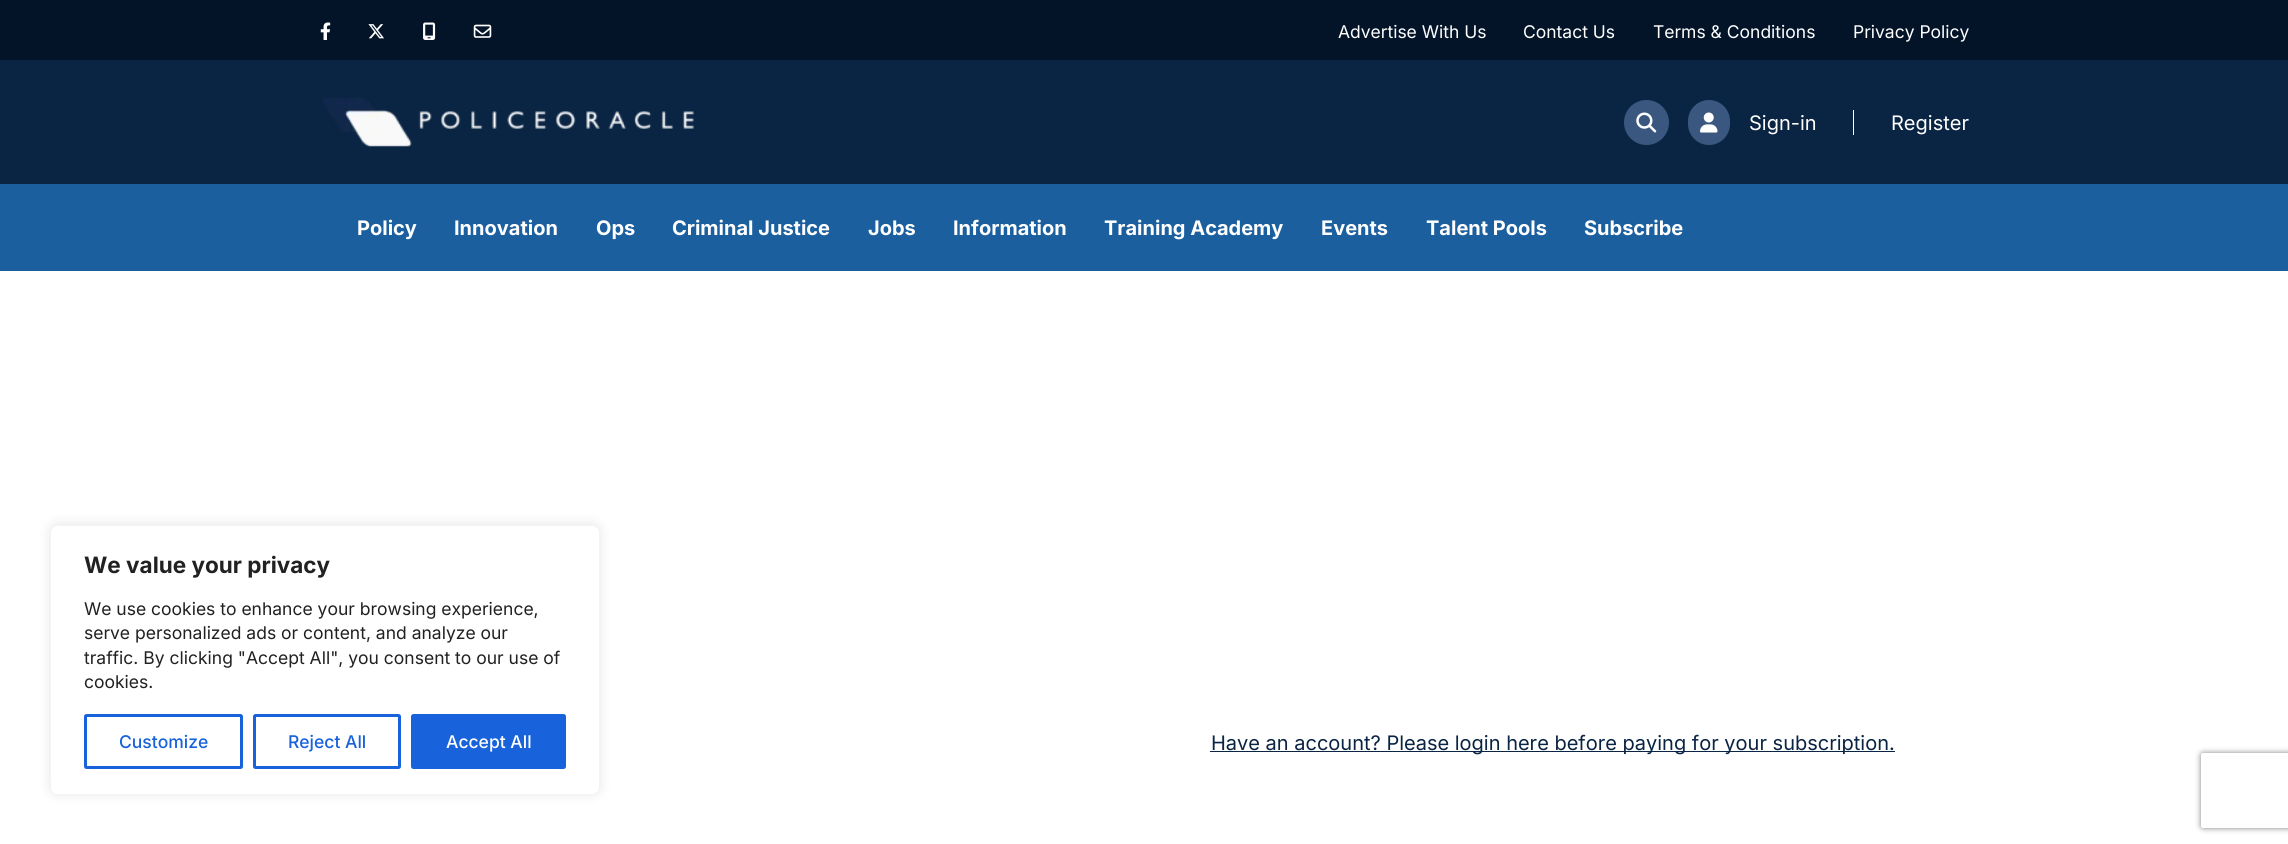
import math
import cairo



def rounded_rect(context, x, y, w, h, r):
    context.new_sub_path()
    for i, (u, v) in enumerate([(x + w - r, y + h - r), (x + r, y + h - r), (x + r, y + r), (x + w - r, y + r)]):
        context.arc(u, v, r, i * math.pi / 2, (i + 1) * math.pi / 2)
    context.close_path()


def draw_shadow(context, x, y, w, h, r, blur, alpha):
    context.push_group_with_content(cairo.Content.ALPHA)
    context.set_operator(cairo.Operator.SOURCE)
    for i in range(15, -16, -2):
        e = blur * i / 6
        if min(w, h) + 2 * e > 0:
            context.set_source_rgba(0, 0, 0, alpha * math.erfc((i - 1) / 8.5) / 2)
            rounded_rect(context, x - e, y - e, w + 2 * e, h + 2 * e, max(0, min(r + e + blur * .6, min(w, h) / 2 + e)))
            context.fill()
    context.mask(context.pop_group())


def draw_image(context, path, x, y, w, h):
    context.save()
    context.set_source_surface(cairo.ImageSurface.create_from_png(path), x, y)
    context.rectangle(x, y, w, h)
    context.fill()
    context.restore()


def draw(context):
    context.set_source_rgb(1, 1, 1)
    context.paint()
    context.set_source_rgb(3 / 255, 20 / 255, 41 / 255)
    context.rectangle(0, 0, 2288, 60)
    context.fill()
    draw_image(context, "images/1.png", 320, 22, 11, 18)
    draw_image(context, "images/2.png", 368, 24, 16, 15)
    draw_image(context, "images/3.png", 423, 22, 13, 18)
    draw_image(context, "images/4.png", 473, 24, 19, 14)
    context.set_source_rgb(10 / 255, 36 / 255, 67 / 255)
    context.rectangle(0, 60, 2288, 124)
    context.fill()
    draw_image(context, "images/5.png", 322, 97, 372, 50)
    context.set_source_rgb(58 / 255, 87 / 255, 127 / 255)
    context.arc(1646.5, 122.5, 22.5, 0, 2 * math.pi)
    context.fill()
    draw_image(context, "images/6.png", 1636, 112, 21, 21)
    rounded_rect(context, 1688, 100, 42, 45, 21)
    context.fill()
    draw_image(context, "images/7.png", 1700, 112, 18, 21)
    context.set_source_rgb(1, 1, 1)
    context.rectangle(1853, 110, 1, 25)
    context.fill()
    context.set_source_rgb(27 / 255, 95 / 255, 158 / 255)
    context.rectangle(0, 184, 2288, 87)
    context.fill()
    context.set_source_rgb(172 / 255, 171 / 255, 171 / 255)
    draw_shadow(context, 50, 524, 550, 270, 8, 6, 0.3)
    context.set_source_rgb(1, 1, 1)
    rounded_rect(context, 50.5, 525.5, 549, 269, 7.5)
    context.fill_preserve()
    context.set_source_rgb(244 / 255, 244 / 255, 244 / 255)
    context.set_line_width(1)
    context.stroke()
    rounded_rect(context, 85.5, 715.5, 156, 52, 1)
    context.set_source_rgb(24 / 255, 99 / 255, 220 / 255)
    context.set_line_width(3)
    context.stroke()
    rounded_rect(context, 254.5, 715.5, 145, 52, 1)
    context.stroke()
    rounded_rect(context, 412.5, 715.5, 152, 52, 1)
    context.fill_preserve()
    context.stroke()
    context.set_source_rgb(10 / 255, 36 / 255, 67 / 255)
    context.rectangle(1210, 751, 685, 1)
    context.fill()
    context.save()
    context.set_fill_rule(cairo.FillRule.EVEN_ODD)
    context.new_path()
    context.move_to(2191, 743)
    context.line_to(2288, 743)
    context.line_to(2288, 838)
    context.line_to(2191, 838)
    context.close_path()
    context.move_to(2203.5, 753)
    context.line_to(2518.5, 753)
    context.curve_to(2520, 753, 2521, 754, 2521, 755.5)
    context.line_to(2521, 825.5)
    context.curve_to(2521, 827, 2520, 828, 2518.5, 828)
    context.line_to(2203.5, 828)
    context.curve_to(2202, 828, 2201, 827, 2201, 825.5)
    context.line_to(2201, 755.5)
    context.curve_to(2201, 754, 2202, 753, 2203.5, 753)
    context.close_path()
    context.clip()
    context.set_source_rgb(128 / 255, 128 / 255, 128 / 255)
    draw_shadow(context, 2201, 753, 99, 75, 2.5, 3, 1)
    context.restore()
    context.select_font_face("Inter")
    context.set_font_size(17.5)
    context.set_source_rgb(1, 1, 1)
    context.move_to(1338, 38)
    context.show_text("Advertise With Us")
    context.move_to(1523, 38)
    context.show_text("Contact Us")
    context.move_to(1653, 38)
    context.show_text("Terms & Conditions")
    context.move_to(1853, 38)
    context.show_text("Privacy Policy")
    context.set_font_size(20)
    context.move_to(1749, 130)
    context.show_text("Sign-in")
    context.move_to(1891, 130)
    context.show_text("Register")
    context.select_font_face("Inter", cairo.FontSlant.NORMAL, cairo.FontWeight.BOLD)
    context.move_to(357, 235)
    context.show_text("Policy")
    context.move_to(454, 235)
    context.show_text("Innovation")
    context.move_to(596, 235)
    context.show_text("Ops")
    context.move_to(672, 235)
    context.show_text("Criminal Justice")
    context.move_to(868, 235)
    context.show_text("Jobs")
    context.move_to(953, 235)
    context.show_text("Information")
    context.move_to(1104, 235)
    context.show_text("Training Academy")
    context.move_to(1321, 235)
    context.show_text("Events")
    context.move_to(1426, 235)
    context.show_text("Talent Pools")
    context.move_to(1584, 235)
    context.show_text("Subscribe")
    context.set_font_size(22.5)
    context.set_source_rgb(33 / 255, 33 / 255, 33 / 255)
    context.move_to(84, 573)
    context.show_text("We value your privacy")
    context.select_font_face("Inter")
    context.set_font_size(17.5)
    context.move_to(84, 615)
    context.show_text("We use cookies to enhance your browsing experience,")
    context.move_to(84, 639)
    context.show_text("serve personalized ads or content, and analyze our")
    context.move_to(84, 664)
    context.show_text("traffic. By clicking \"Accept All\", you consent to our use of")
    context.move_to(84, 688)
    context.show_text("cookies.")
    context.select_font_face("Inter Medium")
    context.set_source_rgb(24 / 255, 99 / 255, 220 / 255)
    context.move_to(119, 748)
    context.show_text("Customize")
    context.move_to(288, 748)
    context.show_text("Reject All")
    context.set_source_rgb(1, 1, 1)
    context.move_to(446, 748)
    context.show_text("Accept All")
    context.select_font_face("Inter")
    context.set_font_size(20)
    context.set_source_rgb(10 / 255, 36 / 255, 67 / 255)
    context.move_to(1211, 750)
    context.show_text("Have an account? Please login here before paying for your subscription.")


surface = cairo.ImageSurface(cairo.Format.RGB24, 2288, 844)
context = cairo.Context(surface)
options = cairo.FontOptions()
options.set_hint_metrics(cairo.HintMetrics.OFF)
options.set_hint_style(cairo.HintStyle.NONE)
context.set_font_options(options)
context.set_miter_limit(4)
draw(context)
surface.write_to_png("out.png")
